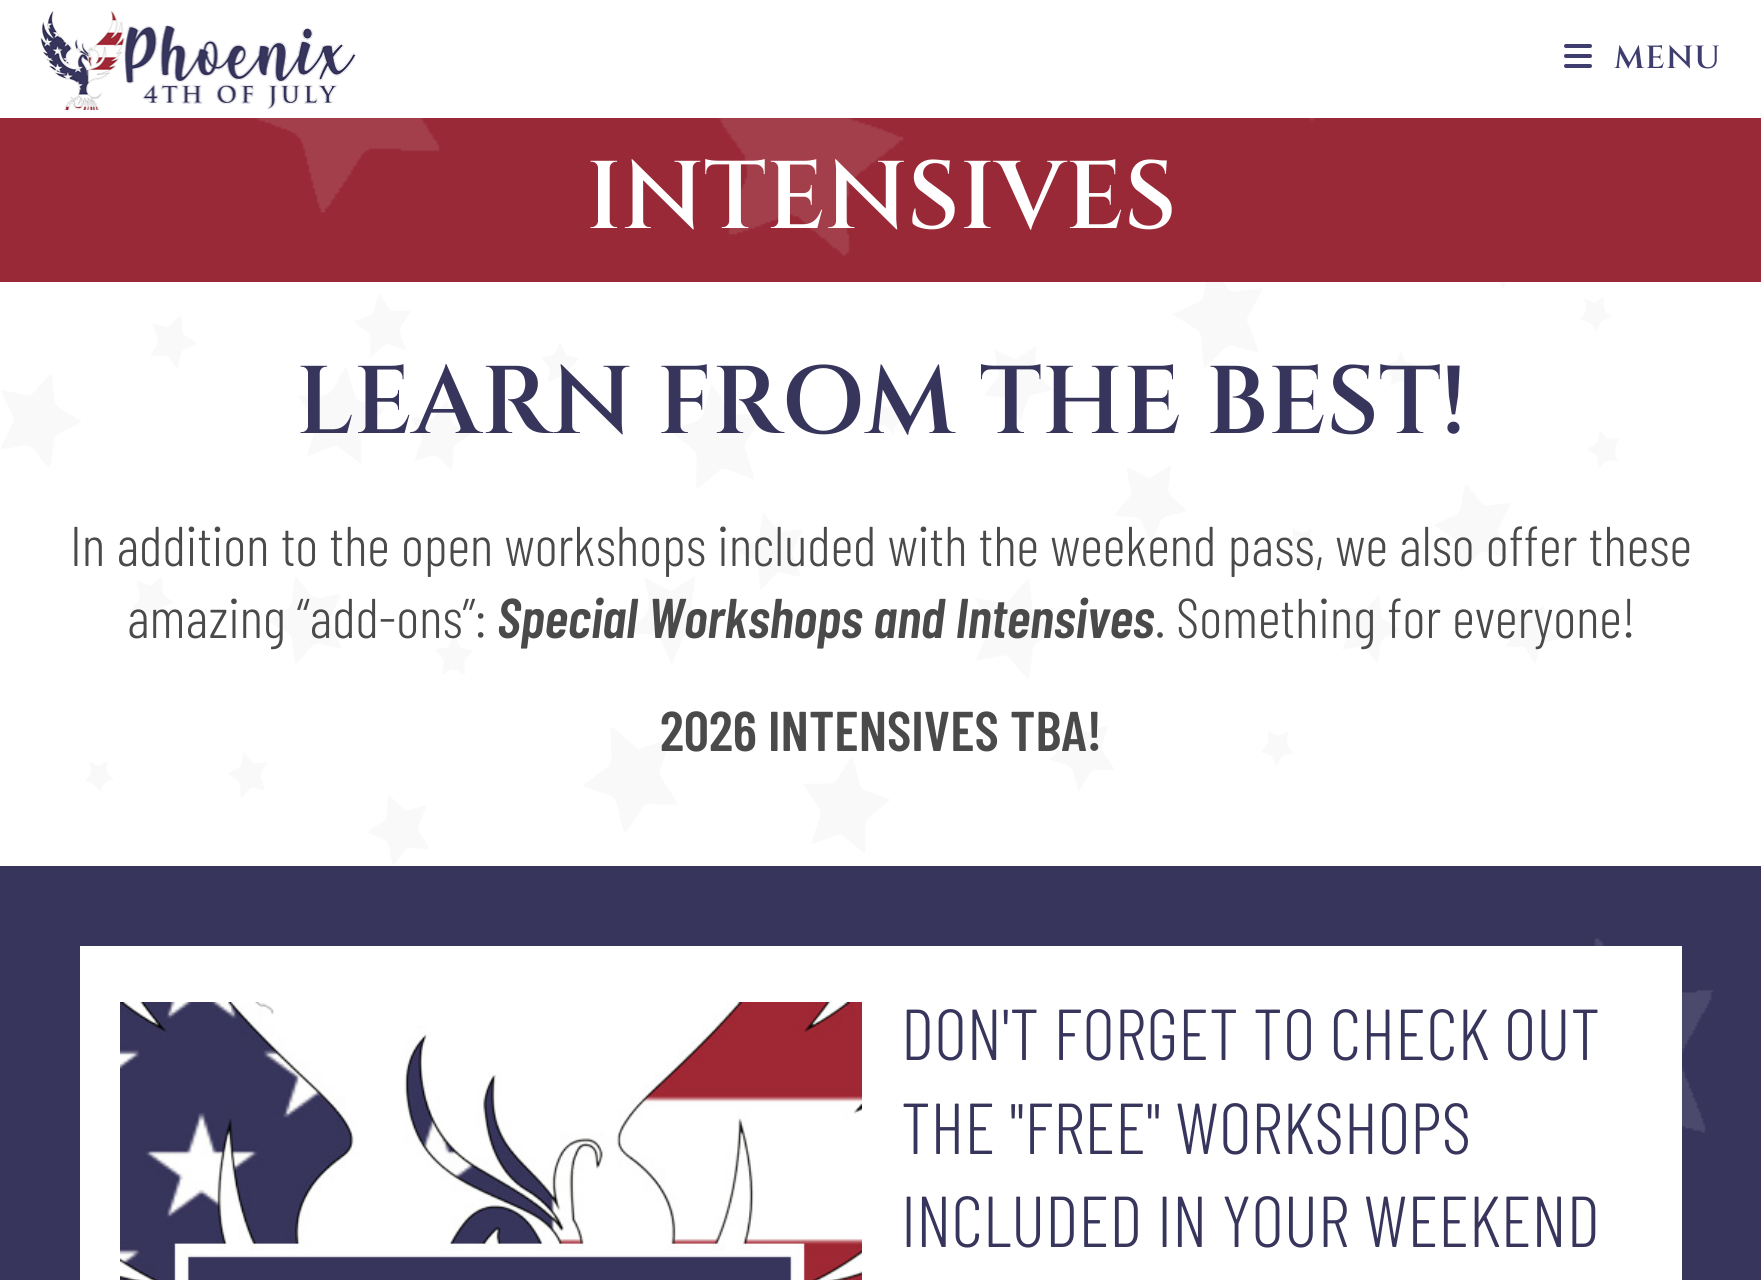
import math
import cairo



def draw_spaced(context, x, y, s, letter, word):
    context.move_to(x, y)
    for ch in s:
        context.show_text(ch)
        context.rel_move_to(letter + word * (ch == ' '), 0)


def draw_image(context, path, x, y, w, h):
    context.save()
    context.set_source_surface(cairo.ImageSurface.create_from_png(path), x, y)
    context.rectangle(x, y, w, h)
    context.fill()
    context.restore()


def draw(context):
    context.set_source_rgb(1, 1, 1)
    context.paint()
    draw_image(context, "images/1.png", 40, 11, 316, 99)
    draw_image(context, "images/2.png", 1564, 44, 28, 24)
    context.set_source_rgb(153 / 255, 41 / 255, 55 / 255)
    context.rectangle(0, 118, 1761, 164)
    context.fill()
    draw_image(context, "images/3.png", 255, 118, 1060, 139)
    draw_image(context, "images/4.png", 1, 282, 1618, 583)
    context.set_source_rgb(55 / 255, 53 / 255, 92 / 255)
    context.rectangle(0, 866, 1761, 414)
    context.fill()
    draw_image(context, "images/6.png", 1594, 938, 120, 195)
    context.set_source_rgb(1, 1, 1)
    context.rectangle(80, 946, 1602, 334)
    context.fill()
    draw_image(context, "images/5.png", 120, 1002, 742, 278)
    context.select_font_face("Cinzel SemiBold")
    context.set_font_size(32)
    context.set_source_rgb(63 / 255, 61 / 255, 110 / 255)
    draw_spaced(context, 1614, 68, "MENU", 1, 0)
    context.set_font_size(96)
    context.set_source_rgb(1, 1, 1)
    context.move_to(586, 228)
    context.show_text("INTENSIVES")
    context.set_source_rgb(55 / 255, 53 / 255, 92 / 255)
    context.move_to(296, 433)
    context.show_text("LEARN FROM THE BEST!")
    context.select_font_face("Barlow Condensed Light")
    context.set_font_size(56)
    context.set_source_rgb(74 / 255, 74 / 255, 74 / 255)
    context.move_to(70, 566)
    context.show_text("In addition to the open workshops included with the weekend pass, we also offer these")
    context.move_to(127, 638)
    context.show_text("amazing “add-ons”:")
    context.select_font_face("Barlow Condensed SemiBold", cairo.FontSlant.ITALIC)
    context.move_to(497, 638)
    context.show_text("Special Workshops and Intensives")
    context.select_font_face("Barlow Condensed Light")
    context.move_to(1155, 638)
    context.show_text(". Something for everyone!")
    context.select_font_face("Barlow Condensed SemiBold")
    context.move_to(660, 751)
    context.show_text("2026 INTENSIVES TBA!")
    context.select_font_face("Barlow Condensed Light")
    context.set_font_size(72)
    context.set_source_rgb(55 / 255, 53 / 255, 92 / 255)
    context.move_to(901, 1060)
    context.show_text("DON'T FORGET TO CHECK OUT")
    context.move_to(901, 1154)
    context.show_text("THE \"FREE\" WORKSHOPS")
    context.move_to(901, 1247)
    context.show_text("INCLUDED IN YOUR WEEKEND")


surface = cairo.ImageSurface(cairo.Format.RGB24, 1761, 1280)
context = cairo.Context(surface)
options = cairo.FontOptions()
options.set_hint_metrics(cairo.HintMetrics.OFF)
options.set_hint_style(cairo.HintStyle.NONE)
context.set_font_options(options)
context.set_miter_limit(4)
draw(context)
surface.write_to_png("out.png")
